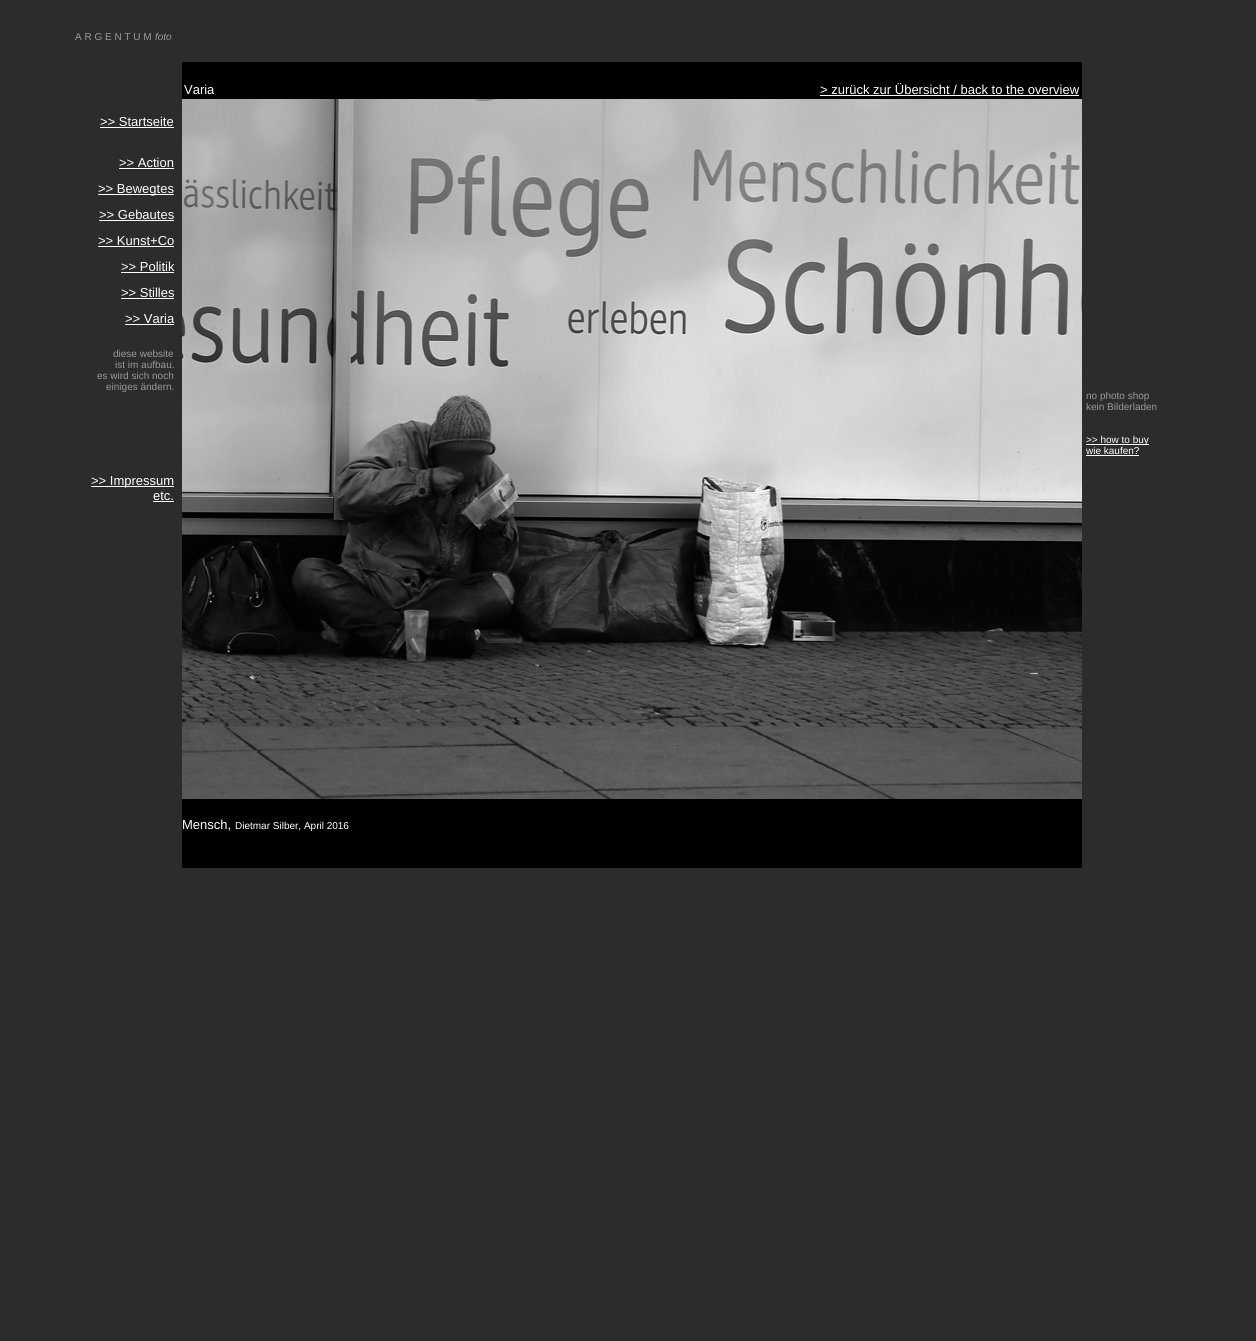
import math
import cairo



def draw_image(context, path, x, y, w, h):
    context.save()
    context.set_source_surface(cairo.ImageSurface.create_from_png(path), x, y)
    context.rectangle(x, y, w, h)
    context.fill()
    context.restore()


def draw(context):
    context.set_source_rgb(44 / 255, 44 / 255, 44 / 255)
    context.paint()
    context.set_source_rgb(0, 0, 0)
    context.rectangle(182, 62, 900, 806)
    context.fill()
    context.set_source_rgb(1, 1, 1)
    context.rectangle(100, 127, 74, 1)
    context.fill()
    context.rectangle(119, 168, 55, 1)
    context.fill()
    context.rectangle(98, 194, 76, 1)
    context.fill()
    context.rectangle(99, 220, 75, 1)
    context.fill()
    context.rectangle(98, 246, 76, 1)
    context.fill()
    context.rectangle(121, 272, 53, 1)
    context.fill()
    context.rectangle(121, 298, 53, 1)
    context.fill()
    context.rectangle(125, 324, 49, 1)
    context.fill()
    context.rectangle(91, 486, 83, 1)
    context.fill()
    context.rectangle(153, 501, 21, 1)
    context.fill()
    context.rectangle(820, 95, 259, 1)
    context.fill()
    draw_image(context, "images/1.png", 182, 99, 900, 700)
    context.rectangle(1086, 444, 63, 1)
    context.fill()
    context.rectangle(1086, 455, 53, 1)
    context.fill()
    context.select_font_face("Liberation Sans")
    context.set_font_size(10)
    context.set_source_rgb(153 / 255, 153 / 255, 153 / 255)
    context.move_to(75, 40)
    context.show_text("A R G E N T U M")
    context.select_font_face("Liberation Sans", cairo.FontSlant.ITALIC)
    context.move_to(155, 40)
    context.show_text("foto")
    context.select_font_face("Liberation Sans")
    context.set_font_size(13)
    context.set_source_rgb(1, 1, 1)
    context.move_to(100, 126)
    context.show_text(">> Startseite")
    context.move_to(119, 167)
    context.show_text(">> Action")
    context.move_to(98, 193)
    context.show_text(">> Bewegtes")
    context.move_to(99, 219)
    context.show_text(">> Gebautes")
    context.move_to(98, 245)
    context.show_text(">> Kunst+Co")
    context.move_to(121, 271)
    context.show_text(">> Politik")
    context.move_to(121, 297)
    context.show_text(">> Stilles")
    context.move_to(125, 323)
    context.show_text(">> Varia")
    context.set_font_size(10)
    context.set_source_rgb(153 / 255, 153 / 255, 153 / 255)
    context.move_to(113, 357)
    context.show_text("diese website")
    context.move_to(115, 368)
    context.show_text("ist im aufbau.")
    context.move_to(97, 379)
    context.show_text("es wird sich noch")
    context.move_to(106, 390)
    context.show_text("einiges ändern.")
    context.set_font_size(13)
    context.set_source_rgb(1, 1, 1)
    context.move_to(91, 485)
    context.show_text(">> Impressum")
    context.move_to(153, 500)
    context.show_text("etc.")
    context.move_to(184, 94)
    context.show_text("Varia")
    context.move_to(820, 94)
    context.show_text("> zurück zur Übersicht / back to the overview")
    context.move_to(182, 829)
    context.show_text("Mensch,")
    context.set_font_size(10)
    context.move_to(235, 829)
    context.show_text("Dietmar Silber, April 2016")
    context.set_source_rgb(153 / 255, 153 / 255, 153 / 255)
    context.move_to(1086, 399)
    context.show_text("no photo shop")
    context.move_to(1086, 410)
    context.show_text("kein Bilderladen")
    context.set_source_rgb(1, 1, 1)
    context.move_to(1086, 443)
    context.show_text(">> how to buy")
    context.move_to(1086, 454)
    context.show_text("wie kaufen?")


surface = cairo.ImageSurface(cairo.Format.RGB24, 1256, 1341)
context = cairo.Context(surface)
options = cairo.FontOptions()
options.set_hint_metrics(cairo.HintMetrics.OFF)
options.set_hint_style(cairo.HintStyle.NONE)
context.set_font_options(options)
context.set_miter_limit(4)
draw(context)
surface.write_to_png("out.png")
